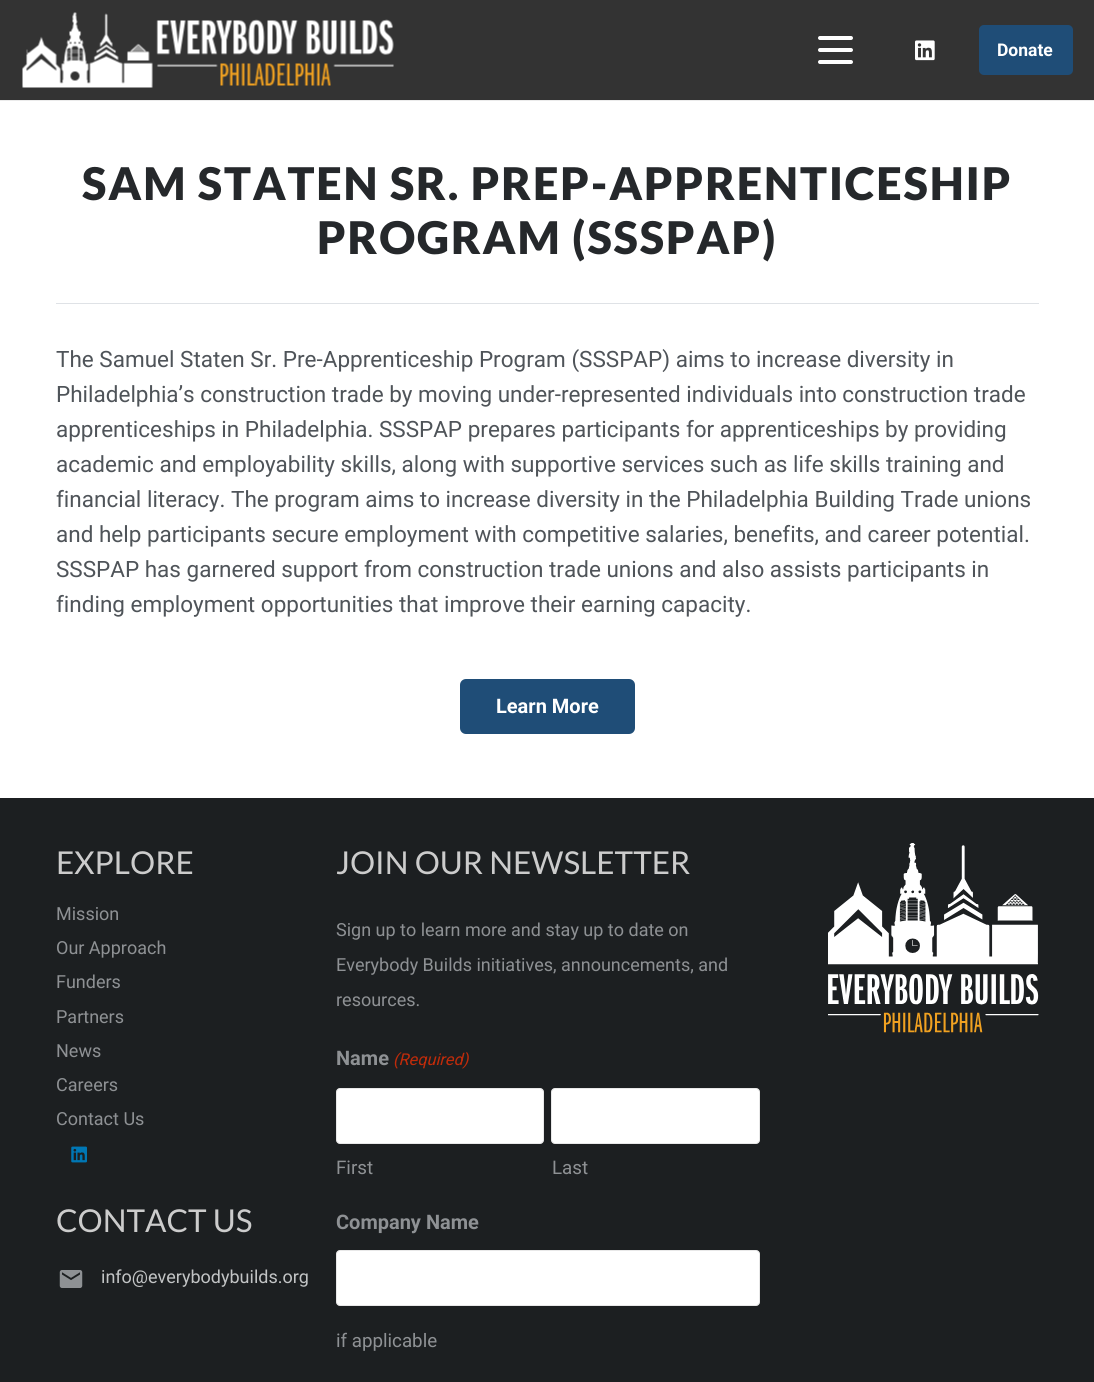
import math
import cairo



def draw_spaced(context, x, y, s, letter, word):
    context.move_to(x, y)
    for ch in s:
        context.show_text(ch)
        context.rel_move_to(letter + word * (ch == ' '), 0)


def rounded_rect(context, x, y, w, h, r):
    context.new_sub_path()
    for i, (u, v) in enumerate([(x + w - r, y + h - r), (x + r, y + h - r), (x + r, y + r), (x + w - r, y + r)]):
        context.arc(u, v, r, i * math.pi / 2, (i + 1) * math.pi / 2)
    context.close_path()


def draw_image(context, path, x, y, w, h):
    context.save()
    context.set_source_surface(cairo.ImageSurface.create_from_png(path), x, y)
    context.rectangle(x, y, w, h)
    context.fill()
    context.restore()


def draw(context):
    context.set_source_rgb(1, 1, 1)
    context.paint()
    context.set_source_rgb(235 / 255, 235 / 255, 235 / 255)
    context.rectangle(0, 100, 1094, 1)
    context.fill()
    context.set_source_rgb(51 / 255, 51 / 255, 51 / 255)
    context.rectangle(0, 0, 1094, 100)
    context.fill()
    draw_image(context, "images/1.png", 22, 12, 372, 76)
    context.set_source_rgb(1, 1, 1)
    rounded_rect(context, 818, 48, 35, 4, 2)
    context.fill()
    rounded_rect(context, 818, 36, 35, 4, 2)
    context.fill()
    rounded_rect(context, 818, 60, 35, 4, 2)
    context.fill()
    draw_image(context, "images/2.png", 915, 40, 20, 21)
    context.set_source_rgb(31 / 255, 77 / 255, 119 / 255)
    rounded_rect(context, 979, 25, 94, 50, 5)
    context.fill()
    context.set_source_rgb(223 / 255, 226 / 255, 230 / 255)
    context.rectangle(56, 303, 983, 1)
    context.fill()
    context.set_source_rgb(31 / 255, 77 / 255, 119 / 255)
    rounded_rect(context, 460, 679, 175, 55, 6)
    context.fill()
    context.set_source_rgb(28 / 255, 31 / 255, 33 / 255)
    context.rectangle(0, 798, 1094, 584)
    context.fill()
    draw_image(context, "images/3.png", 71, 1146, 16, 17)
    draw_image(context, "images/4.png", 59, 1270, 24, 18)
    context.set_source_rgb(1, 1, 1)
    rounded_rect(context, 336.5, 1088.5, 207, 55, 3.5)
    context.fill_preserve()
    context.set_source_rgb(232 / 255, 232 / 255, 232 / 255)
    context.set_line_width(1)
    context.stroke()
    context.set_source_rgb(1, 1, 1)
    rounded_rect(context, 551.5, 1088.5, 208, 55, 3.5)
    context.fill_preserve()
    context.set_source_rgb(232 / 255, 232 / 255, 232 / 255)
    context.stroke()
    context.set_source_rgb(1, 1, 1)
    rounded_rect(context, 336.5, 1250.5, 423, 55, 3.5)
    context.fill_preserve()
    context.set_source_rgb(232 / 255, 232 / 255, 232 / 255)
    context.stroke()
    draw_image(context, "images/5.png", 828, 843, 211, 190)
    context.select_font_face("Roboto", cairo.FontSlant.NORMAL, cairo.FontWeight.BOLD)
    context.set_font_size(17.5)
    context.set_source_rgb(1, 1, 1)
    context.move_to(997, 56)
    context.show_text("Donate")
    context.select_font_face("Lato Black")
    context.set_font_size(45)
    context.set_source_rgb(37 / 255, 40 / 255, 43 / 255)
    draw_spaced(context, 82, 200, "SAM STATEN SR. PREP-APPRENTICESHIP", 1.8, 0)
    draw_spaced(context, 317, 254, "PROGRAM (SSSPAP)", 1.8, 0)
    context.select_font_face("Roboto")
    context.set_font_size(22.5)
    context.set_source_rgb(79 / 255, 84 / 255, 89 / 255)
    context.move_to(56, 367)
    context.show_text("The Samuel Staten Sr. Pre-Apprenticeship Program (SSSPAP) aims to increase diversity in")
    context.move_to(56, 402)
    context.show_text("Philadelphia’s construction trade by moving under-represented individuals into construction trade")
    context.move_to(56, 437)
    context.show_text("apprenticeships in Philadelphia. SSSPAP prepares participants for apprenticeships by providing")
    context.move_to(56, 472)
    context.show_text("academic and employability skills, along with supportive services such as life skills training and")
    context.move_to(56, 507)
    context.show_text("financial literacy. The program aims to increase diversity in the Philadelphia Building Trade unions")
    context.move_to(56, 542)
    context.show_text("and help participants secure employment with competitive salaries, benefits, and career potential.")
    context.move_to(56, 577)
    context.show_text("SSSPAP has garnered support from construction trade unions and also assists participants in")
    context.move_to(56, 612)
    context.show_text("finding employment opportunities that improve their earning capacity.")
    context.select_font_face("Roboto", cairo.FontSlant.NORMAL, cairo.FontWeight.BOLD)
    context.set_font_size(20)
    context.set_source_rgb(1, 1, 1)
    context.move_to(496, 713)
    context.show_text("Learn More")
    context.select_font_face("Lato")
    context.set_font_size(31.5)
    context.set_source_rgb(204 / 255, 204 / 255, 204 / 255)
    context.move_to(56, 874)
    context.show_text("EXPLORE")
    context.select_font_face("Roboto")
    context.set_font_size(18)
    context.set_source_rgb(142 / 255, 145 / 255, 148 / 255)
    context.move_to(56, 920)
    context.show_text("Mission")
    context.move_to(56, 954)
    context.show_text("Our Approach")
    context.move_to(56, 988)
    context.show_text("Funders")
    context.move_to(56, 1023)
    context.show_text("Partners")
    context.move_to(56, 1057)
    context.show_text("News")
    context.move_to(56, 1091)
    context.show_text("Careers")
    context.move_to(56, 1125)
    context.show_text("Contact Us")
    context.select_font_face("Lato")
    context.set_font_size(31.5)
    context.set_source_rgb(204 / 255, 204 / 255, 204 / 255)
    context.move_to(56, 1232)
    context.show_text("CONTACT US")
    context.select_font_face("Roboto")
    context.set_font_size(18)
    context.set_source_rgb(194 / 255, 196 / 255, 197 / 255)
    context.move_to(101, 1283)
    context.show_text("info@everybodybuilds.org")
    context.select_font_face("Lato")
    context.set_font_size(31.5)
    context.set_source_rgb(204 / 255, 204 / 255, 204 / 255)
    context.move_to(336, 874)
    context.show_text("JOIN OUR NEWSLETTER")
    context.select_font_face("Roboto")
    context.set_font_size(18)
    context.set_source_rgb(142 / 255, 145 / 255, 148 / 255)
    context.move_to(336, 936)
    context.show_text("Sign up to learn more and stay up to date on")
    context.move_to(336, 971)
    context.show_text("Everybody Builds initiatives, announcements, and")
    context.move_to(336, 1006)
    context.show_text("resources.")
    context.select_font_face("Roboto", cairo.FontSlant.NORMAL, cairo.FontWeight.BOLD)
    context.set_font_size(20)
    context.move_to(336, 1065)
    context.show_text("Name")
    context.select_font_face("Roboto", cairo.FontSlant.ITALIC)
    context.set_font_size(16.25)
    context.set_source_rgb(192 / 255, 43 / 255, 10 / 255)
    context.move_to(393, 1065)
    context.show_text("(Required)")
    context.select_font_face("Roboto")
    context.set_font_size(18.75)
    context.set_source_rgb(142 / 255, 145 / 255, 148 / 255)
    context.move_to(336, 1174)
    context.show_text("First")
    context.move_to(552, 1174)
    context.show_text("Last")
    context.select_font_face("Roboto", cairo.FontSlant.NORMAL, cairo.FontWeight.BOLD)
    context.set_font_size(20)
    context.move_to(336, 1229)
    context.show_text("Company Name")
    context.select_font_face("Roboto")
    context.set_font_size(18.75)
    context.move_to(336, 1347)
    context.show_text("if applicable")


surface = cairo.ImageSurface(cairo.Format.RGB24, 1094, 1382)
context = cairo.Context(surface)
options = cairo.FontOptions()
options.set_hint_metrics(cairo.HintMetrics.OFF)
options.set_hint_style(cairo.HintStyle.NONE)
context.set_font_options(options)
context.set_miter_limit(4)
draw(context)
surface.write_to_png("out.png")
